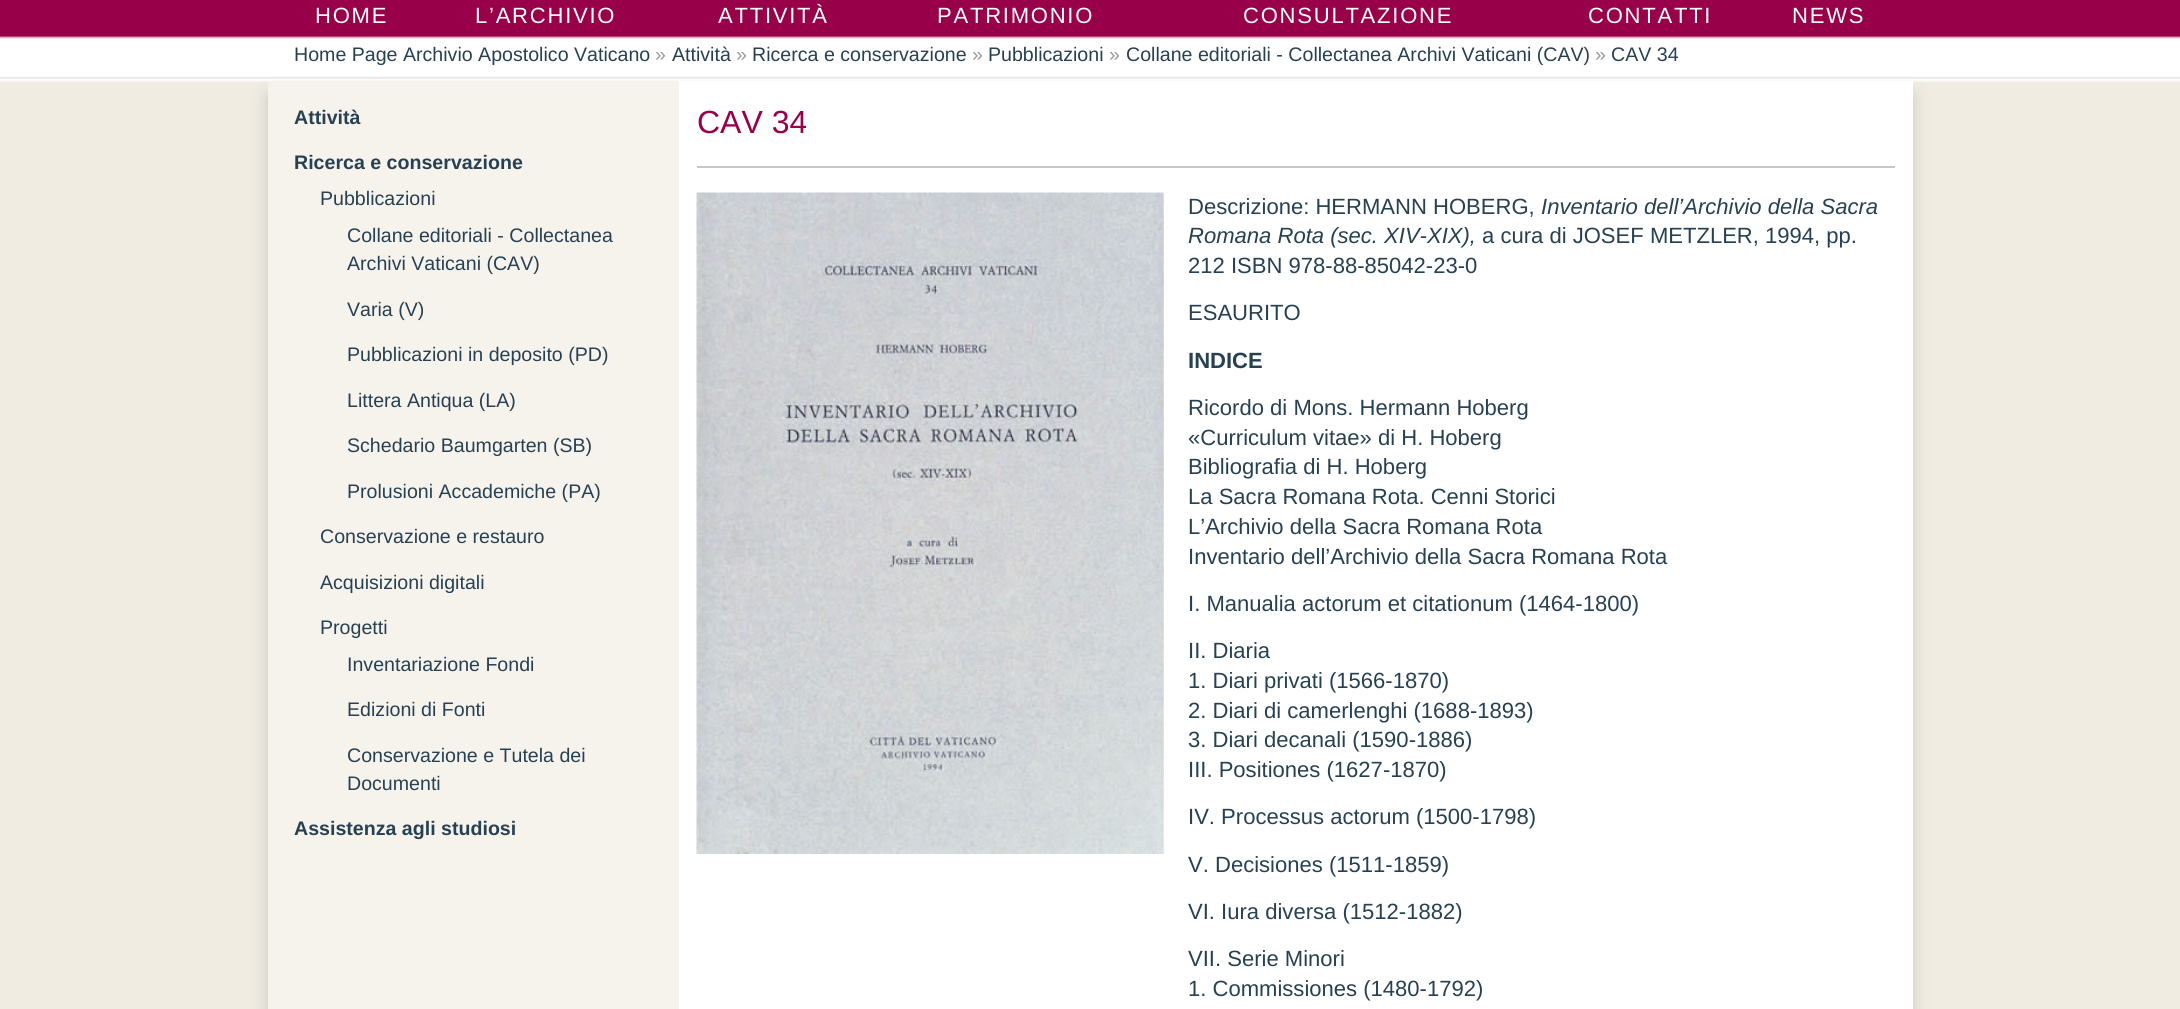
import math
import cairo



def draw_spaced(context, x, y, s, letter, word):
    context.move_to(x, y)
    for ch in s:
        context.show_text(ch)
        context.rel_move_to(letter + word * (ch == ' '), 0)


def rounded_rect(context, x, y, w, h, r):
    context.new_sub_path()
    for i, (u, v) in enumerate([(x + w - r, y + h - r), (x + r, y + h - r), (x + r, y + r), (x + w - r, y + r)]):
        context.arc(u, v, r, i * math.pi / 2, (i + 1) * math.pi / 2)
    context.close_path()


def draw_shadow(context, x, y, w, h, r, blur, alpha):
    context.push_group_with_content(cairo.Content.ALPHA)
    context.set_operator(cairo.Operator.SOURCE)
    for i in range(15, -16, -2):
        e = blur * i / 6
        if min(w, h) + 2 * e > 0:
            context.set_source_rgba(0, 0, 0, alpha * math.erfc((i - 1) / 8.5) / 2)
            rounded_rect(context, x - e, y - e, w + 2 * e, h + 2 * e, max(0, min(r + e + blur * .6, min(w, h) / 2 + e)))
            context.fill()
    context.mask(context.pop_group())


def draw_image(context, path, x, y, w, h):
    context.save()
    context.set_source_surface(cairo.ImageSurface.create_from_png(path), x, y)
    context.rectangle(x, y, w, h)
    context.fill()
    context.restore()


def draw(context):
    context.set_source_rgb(240 / 255, 236 / 255, 226 / 255)
    context.paint()
    draw_image(context, "images/1.png", 0, 0, 2180, 82)
    context.set_source_rgb(200 / 255, 198 / 255, 198 / 255)
    draw_shadow(context, 268, 96, 1645, 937, 0, 8, 1)
    context.set_source_rgb(246 / 255, 243 / 255, 237 / 255)
    context.rectangle(268, 81, 411, 928)
    context.fill()
    context.set_source_rgb(1, 1, 1)
    context.rectangle(679, 81, 1234, 928)
    context.fill()
    context.set_source_rgb(198 / 255, 199 / 255, 200 / 255)
    context.rectangle(697, 166, 1198, 2)
    context.fill()
    draw_image(context, "images/2.png", 696, 192, 468, 662)
    context.select_font_face("Liberation Sans")
    context.set_font_size(22.05)
    context.set_source_rgb(1, 1, 1)
    draw_spaced(context, 315, 23, "HOME", 1.75, 0)
    draw_spaced(context, 475, 23, "L’ARCHIVIO", 1.75, 0)
    draw_spaced(context, 718, 23, "ATTIVITÀ", 1.75, 0)
    draw_spaced(context, 937, 23, "PATRIMONIO", 1.75, 0)
    draw_spaced(context, 1243, 23, "CONSULTAZIONE", 1.75, 0)
    draw_spaced(context, 1588, 23, "CONTATTI", 1.75, 0)
    draw_spaced(context, 1792, 23, "NEWS", 1.75, 0)
    context.set_font_size(19.6)
    context.set_source_rgb(39 / 255, 64 / 255, 82 / 255)
    context.move_to(294, 61)
    context.show_text("Home Page Archivio Apostolico Vaticano")
    context.set_source_rgb(153 / 255, 153 / 255, 153 / 255)
    context.move_to(655, 61)
    context.show_text("»")
    context.set_source_rgb(39 / 255, 64 / 255, 82 / 255)
    context.move_to(672, 61)
    context.show_text("Attività")
    context.set_source_rgb(153 / 255, 153 / 255, 153 / 255)
    context.move_to(736, 61)
    context.show_text("»")
    context.set_source_rgb(39 / 255, 64 / 255, 82 / 255)
    context.move_to(752, 61)
    context.show_text("Ricerca e conservazione")
    context.set_source_rgb(153 / 255, 153 / 255, 153 / 255)
    context.move_to(972, 61)
    context.show_text("»")
    context.set_source_rgb(39 / 255, 64 / 255, 82 / 255)
    context.move_to(988, 61)
    context.show_text("Pubblicazioni")
    context.set_source_rgb(153 / 255, 153 / 255, 153 / 255)
    context.move_to(1109, 61)
    context.show_text("»")
    context.set_source_rgb(39 / 255, 64 / 255, 82 / 255)
    context.move_to(1126, 61)
    context.show_text("Collane editoriali - Collectanea Archivi Vaticani (CAV)")
    context.set_source_rgb(153 / 255, 153 / 255, 153 / 255)
    context.move_to(1595, 61)
    context.show_text("»")
    context.set_source_rgb(39 / 255, 64 / 255, 82 / 255)
    context.move_to(1611, 61)
    context.show_text("CAV 34")
    context.select_font_face("Liberation Sans", cairo.FontSlant.NORMAL, cairo.FontWeight.BOLD)
    context.move_to(294, 124)
    context.show_text("Attività")
    context.move_to(294, 169)
    context.show_text("Ricerca e conservazione")
    context.select_font_face("Liberation Sans")
    context.move_to(320, 205)
    context.show_text("Pubblicazioni")
    context.move_to(347, 242)
    context.show_text("Collane editoriali - Collectanea")
    context.move_to(347, 270)
    context.show_text("Archivi Vaticani (CAV)")
    context.move_to(347, 316)
    context.show_text("Varia (V)")
    context.move_to(347, 361)
    context.show_text("Pubblicazioni in deposito (PD)")
    context.move_to(347, 407)
    context.show_text("Littera Antiqua (LA)")
    context.move_to(347, 452)
    context.show_text("Schedario Baumgarten (SB)")
    context.move_to(347, 498)
    context.show_text("Prolusioni Accademiche (PA)")
    context.move_to(320, 543)
    context.show_text("Conservazione e restauro")
    context.move_to(320, 589)
    context.show_text("Acquisizioni digitali")
    context.move_to(320, 634)
    context.show_text("Progetti")
    context.move_to(347, 671)
    context.show_text("Inventariazione Fondi")
    context.move_to(347, 716)
    context.show_text("Edizioni di Fonti")
    context.move_to(347, 762)
    context.show_text("Conservazione e Tutela dei")
    context.move_to(347, 790)
    context.show_text("Documenti")
    context.select_font_face("Liberation Sans", cairo.FontSlant.NORMAL, cairo.FontWeight.BOLD)
    context.move_to(294, 835)
    context.show_text("Assistenza agli studiosi")
    context.select_font_face("Liberation Sans")
    context.set_font_size(32)
    context.set_source_rgb(153 / 255, 0, 74 / 255)
    context.move_to(697, 133)
    context.show_text("CAV 34")
    context.set_font_size(22.05)
    context.set_source_rgb(39 / 255, 64 / 255, 82 / 255)
    context.move_to(1188, 214)
    context.show_text("Descrizione: HERMANN HOBERG,")
    context.select_font_face("Liberation Sans", cairo.FontSlant.ITALIC)
    context.move_to(1541, 214)
    context.show_text("Inventario dell’Archivio della Sacra")
    context.move_to(1188, 243)
    context.show_text("Romana Rota (sec. XIV-XIX),")
    context.select_font_face("Liberation Sans")
    context.move_to(1482, 243)
    context.show_text("a cura di JOSEF METZLER, 1994, pp.")
    context.move_to(1188, 273)
    context.show_text("212 ISBN 978-88-85042-23-0")
    context.move_to(1188, 320)
    context.show_text("ESAURITO")
    context.select_font_face("Liberation Sans", cairo.FontSlant.NORMAL, cairo.FontWeight.BOLD)
    context.move_to(1188, 368)
    context.show_text("INDICE")
    context.select_font_face("Liberation Sans")
    context.move_to(1188, 415)
    context.show_text("Ricordo di Mons. Hermann Hoberg")
    context.move_to(1188, 445)
    context.show_text("«Curriculum vitae» di H. Hoberg")
    context.move_to(1188, 474)
    context.show_text("Bibliografia di H. Hoberg")
    context.move_to(1188, 504)
    context.show_text("La Sacra Romana Rota. Cenni Storici")
    context.move_to(1188, 534)
    context.show_text("L’Archivio della Sacra Romana Rota")
    context.move_to(1188, 564)
    context.show_text("Inventario dell’Archivio della Sacra Romana Rota")
    context.move_to(1188, 611)
    context.show_text("I. Manualia actorum et citationum (1464-1800)")
    context.move_to(1188, 658)
    context.show_text("II. Diaria")
    context.move_to(1188, 688)
    context.show_text("1. Diari privati (1566-1870)")
    context.move_to(1188, 718)
    context.show_text("2. Diari di camerlenghi (1688-1893)")
    context.move_to(1188, 747)
    context.show_text("3. Diari decanali (1590-1886)")
    context.move_to(1188, 777)
    context.show_text("III. Positiones (1627-1870)")
    context.move_to(1188, 824)
    context.show_text("IV. Processus actorum (1500-1798)")
    context.move_to(1188, 872)
    context.show_text("V. Decisiones (1511-1859)")
    context.move_to(1188, 919)
    context.show_text("VI. Iura diversa (1512-1882)")
    context.move_to(1188, 966)
    context.show_text("VII. Serie Minori")
    context.move_to(1188, 996)
    context.show_text("1. Commissiones (1480-1792)")


surface = cairo.ImageSurface(cairo.Format.RGB24, 2180, 1009)
context = cairo.Context(surface)
options = cairo.FontOptions()
options.set_hint_metrics(cairo.HintMetrics.OFF)
options.set_hint_style(cairo.HintStyle.NONE)
context.set_font_options(options)
context.set_miter_limit(4)
draw(context)
surface.write_to_png("out.png")
